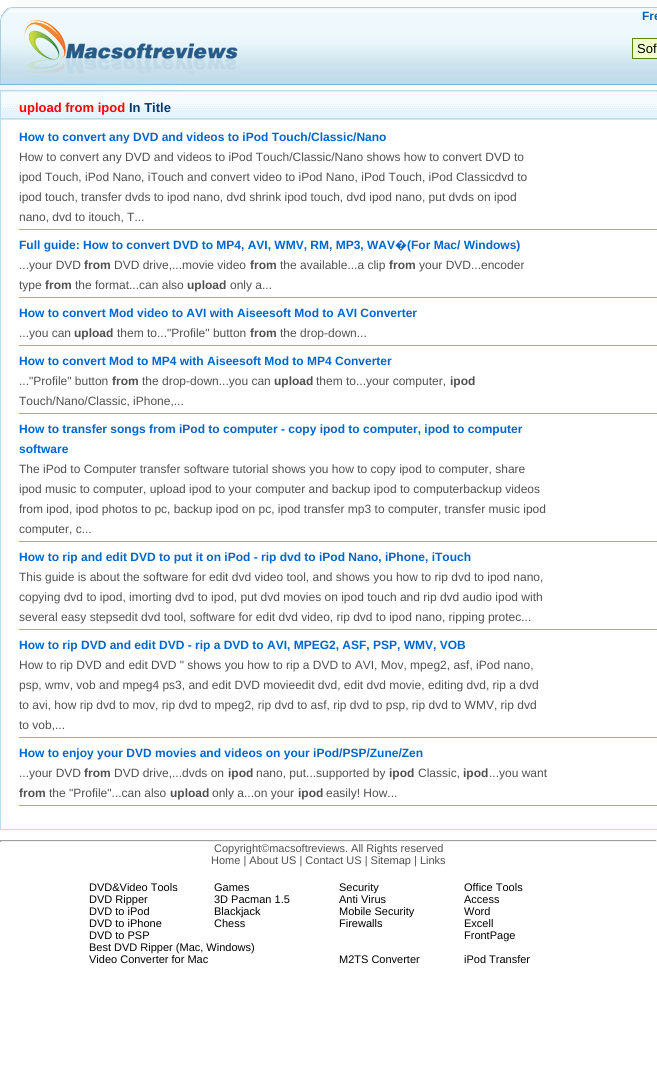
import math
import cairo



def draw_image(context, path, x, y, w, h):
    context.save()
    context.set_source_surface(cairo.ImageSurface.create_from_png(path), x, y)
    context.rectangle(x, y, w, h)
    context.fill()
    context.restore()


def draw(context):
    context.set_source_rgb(1, 1, 1)
    context.paint()
    draw_image(context, "images/1.png", 0, 7, 657, 77)
    context.set_source_rgb(123 / 255, 181 / 255, 211 / 255)
    context.rectangle(0, 84, 657, 1)
    context.fill()
    draw_image(context, "images/2.png", 23, 19, 215, 55)
    context.set_source_rgb(241 / 255, 1, 202 / 255)
    context.rectangle(632.5, 38.5, 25, 20)
    context.fill_preserve()
    context.set_source_rgb(88 / 255, 137 / 255, 9 / 255)
    context.set_line_width(1)
    context.stroke()
    draw_image(context, "images/3.png", 0, 85, 178, 5)
    draw_image(context, "images/4.png", 1, 90, 656, 30)
    context.set_source_rgb(186 / 255, 220 / 255, 239 / 255)
    context.rectangle(0, 829, 657, 1)
    context.fill()
    context.rectangle(0, 90, 1, 740)
    context.fill()
    context.set_source_rgb(123 / 255, 181 / 255, 211 / 255)
    context.rectangle(19, 229, 638, 1)
    context.fill()
    context.rectangle(19, 297, 638, 1)
    context.fill()
    context.rectangle(19, 345, 638, 1)
    context.fill()
    context.rectangle(19, 413, 638, 1)
    context.fill()
    context.rectangle(19, 541, 638, 1)
    context.fill()
    context.rectangle(19, 629, 638, 1)
    context.fill()
    context.rectangle(19, 737, 638, 1)
    context.fill()
    context.rectangle(19, 805, 638, 1)
    context.fill()
    context.set_source_rgb(159 / 255, 159 / 255, 159 / 255)
    context.rectangle(0, 840, 657, 1)
    context.fill()
    context.set_source_rgb(238 / 255, 238 / 255, 238 / 255)
    context.rectangle(656, 840, 1, 2)
    context.fill()
    context.rectangle(0, 841, 657, 1)
    context.fill()
    context.set_source_rgb(159 / 255, 159 / 255, 159 / 255)
    context.rectangle(0, 840, 1, 2)
    context.fill()
    context.select_font_face("Liberation Sans", cairo.FontSlant.NORMAL, cairo.FontWeight.BOLD)
    context.set_font_size(12)
    context.set_source_rgb(16 / 255, 96 / 255, 171 / 255)
    context.move_to(642, 20)
    context.show_text("Fre")
    context.select_font_face("Liberation Sans")
    context.set_font_size(13)
    context.set_source_rgb(0, 0, 0)
    context.move_to(637, 53)
    context.show_text("Sof")
    context.select_font_face("Liberation Sans", cairo.FontSlant.NORMAL, cairo.FontWeight.BOLD)
    context.set_source_rgb(1, 0, 0)
    context.move_to(19, 112)
    context.show_text("upload from ipod")
    context.set_source_rgb(3 / 255, 58 / 255, 109 / 255)
    context.move_to(129, 112)
    context.show_text("In Title")
    context.set_font_size(12)
    context.set_source_rgb(0, 102 / 255, 204 / 255)
    context.move_to(19, 141)
    context.show_text("How to convert any DVD and videos to iPod Touch/Classic/Nano")
    context.select_font_face("Liberation Sans")
    context.set_source_rgb(80 / 255, 80 / 255, 80 / 255)
    context.move_to(19, 161)
    context.show_text("How to convert any DVD and videos to iPod Touch/Classic/Nano shows how to convert DVD to")
    context.move_to(19, 181)
    context.show_text("ipod Touch, iPod Nano, iTouch and convert video to iPod Nano, iPod Touch, iPod Classicdvd to")
    context.move_to(19, 201)
    context.show_text("ipod touch, transfer dvds to ipod nano, dvd shrink ipod touch, dvd ipod nano, put dvds on ipod")
    context.move_to(19, 221)
    context.show_text("nano, dvd to itouch, T...")
    context.select_font_face("Liberation Sans", cairo.FontSlant.NORMAL, cairo.FontWeight.BOLD)
    context.set_source_rgb(0, 102 / 255, 204 / 255)
    context.move_to(19, 249)
    context.show_text("Full guide: How to convert DVD to MP4, AVI, WMV, RM, MP3, WAV")
    context.select_font_face("Noto Sans", cairo.FontSlant.NORMAL, cairo.FontWeight.BOLD)
    context.move_to(395, 249)
    context.show_text("�")
    context.select_font_face("Liberation Sans", cairo.FontSlant.NORMAL, cairo.FontWeight.BOLD)
    context.move_to(407, 249)
    context.show_text("(For Mac/ Windows)")
    context.select_font_face("Liberation Sans")
    context.set_source_rgb(80 / 255, 80 / 255, 80 / 255)
    context.move_to(19, 269)
    context.show_text("...your DVD")
    context.select_font_face("Liberation Sans", cairo.FontSlant.NORMAL, cairo.FontWeight.BOLD)
    context.move_to(84, 269)
    context.show_text("from")
    context.select_font_face("Liberation Sans")
    context.move_to(114, 269)
    context.show_text("DVD drive,...movie video")
    context.select_font_face("Liberation Sans", cairo.FontSlant.NORMAL, cairo.FontWeight.BOLD)
    context.move_to(250, 269)
    context.show_text("from")
    context.select_font_face("Liberation Sans")
    context.move_to(280, 269)
    context.show_text("the available...a clip")
    context.select_font_face("Liberation Sans", cairo.FontSlant.NORMAL, cairo.FontWeight.BOLD)
    context.move_to(389, 269)
    context.show_text("from")
    context.select_font_face("Liberation Sans")
    context.move_to(419, 269)
    context.show_text("your DVD...encoder")
    context.move_to(19, 289)
    context.show_text("type")
    context.select_font_face("Liberation Sans", cairo.FontSlant.NORMAL, cairo.FontWeight.BOLD)
    context.move_to(45, 289)
    context.show_text("from")
    context.select_font_face("Liberation Sans")
    context.move_to(75, 289)
    context.show_text("the format...can also")
    context.select_font_face("Liberation Sans", cairo.FontSlant.NORMAL, cairo.FontWeight.BOLD)
    context.move_to(187, 289)
    context.show_text("upload")
    context.select_font_face("Liberation Sans")
    context.move_to(230, 289)
    context.show_text("only a...")
    context.select_font_face("Liberation Sans", cairo.FontSlant.NORMAL, cairo.FontWeight.BOLD)
    context.set_source_rgb(0, 102 / 255, 204 / 255)
    context.move_to(19, 317)
    context.show_text("How to convert Mod video to AVI with Aiseesoft Mod to AVI Converter")
    context.select_font_face("Liberation Sans")
    context.set_source_rgb(80 / 255, 80 / 255, 80 / 255)
    context.move_to(19, 337)
    context.show_text("...you can")
    context.select_font_face("Liberation Sans", cairo.FontSlant.NORMAL, cairo.FontWeight.BOLD)
    context.move_to(74, 337)
    context.show_text("upload")
    context.select_font_face("Liberation Sans")
    context.move_to(117, 337)
    context.show_text("them to...\"Profile\" button")
    context.select_font_face("Liberation Sans", cairo.FontSlant.NORMAL, cairo.FontWeight.BOLD)
    context.move_to(250, 337)
    context.show_text("from")
    context.select_font_face("Liberation Sans")
    context.move_to(280, 337)
    context.show_text("the drop-down...")
    context.select_font_face("Liberation Sans", cairo.FontSlant.NORMAL, cairo.FontWeight.BOLD)
    context.set_source_rgb(0, 102 / 255, 204 / 255)
    context.move_to(19, 365)
    context.show_text("How to convert Mod to MP4 with Aiseesoft Mod to MP4 Converter")
    context.select_font_face("Liberation Sans")
    context.set_source_rgb(80 / 255, 80 / 255, 80 / 255)
    context.move_to(19, 385)
    context.show_text("...\"Profile\" button")
    context.select_font_face("Liberation Sans", cairo.FontSlant.NORMAL, cairo.FontWeight.BOLD)
    context.move_to(112, 385)
    context.show_text("from")
    context.select_font_face("Liberation Sans")
    context.move_to(142, 385)
    context.show_text("the drop-down...you can")
    context.select_font_face("Liberation Sans", cairo.FontSlant.NORMAL, cairo.FontWeight.BOLD)
    context.move_to(274, 385)
    context.show_text("upload")
    context.select_font_face("Liberation Sans")
    context.move_to(316, 385)
    context.show_text("them to...your computer,")
    context.select_font_face("Liberation Sans", cairo.FontSlant.NORMAL, cairo.FontWeight.BOLD)
    context.move_to(450, 385)
    context.show_text("ipod")
    context.select_font_face("Liberation Sans")
    context.move_to(19, 405)
    context.show_text("Touch/Nano/Classic, iPhone,...")
    context.select_font_face("Liberation Sans", cairo.FontSlant.NORMAL, cairo.FontWeight.BOLD)
    context.set_source_rgb(0, 102 / 255, 204 / 255)
    context.move_to(19, 433)
    context.show_text("How to transfer songs from iPod to computer - copy ipod to computer, ipod to computer")
    context.move_to(19, 453)
    context.show_text("software")
    context.select_font_face("Liberation Sans")
    context.set_source_rgb(80 / 255, 80 / 255, 80 / 255)
    context.move_to(19, 473)
    context.show_text("The iPod to Computer transfer software tutorial shows you how to copy ipod to computer, share")
    context.move_to(19, 493)
    context.show_text("ipod music to computer, upload ipod to your computer and backup ipod to computerbackup videos")
    context.move_to(19, 513)
    context.show_text("from ipod, ipod photos to pc, backup ipod on pc, ipod transfer mp3 to computer, transfer music ipod")
    context.move_to(19, 533)
    context.show_text("computer, c...")
    context.select_font_face("Liberation Sans", cairo.FontSlant.NORMAL, cairo.FontWeight.BOLD)
    context.set_source_rgb(0, 102 / 255, 204 / 255)
    context.move_to(19, 561)
    context.show_text("How to rip and edit DVD to put it on iPod - rip dvd to iPod Nano, iPhone, iTouch")
    context.select_font_face("Liberation Sans")
    context.set_source_rgb(80 / 255, 80 / 255, 80 / 255)
    context.move_to(19, 581)
    context.show_text("This guide is about the software for edit dvd video tool, and shows you how to rip dvd to ipod nano,")
    context.move_to(19, 601)
    context.show_text("copying dvd to ipod, imorting dvd to ipod, put dvd movies on ipod touch and rip dvd audio ipod with")
    context.move_to(19, 621)
    context.show_text("several easy stepsedit dvd tool, software for edit dvd video, rip dvd to ipod nano, ripping protec...")
    context.select_font_face("Liberation Sans", cairo.FontSlant.NORMAL, cairo.FontWeight.BOLD)
    context.set_source_rgb(0, 102 / 255, 204 / 255)
    context.move_to(19, 649)
    context.show_text("How to rip DVD and edit DVD - rip a DVD to AVI, MPEG2, ASF, PSP, WMV, VOB")
    context.select_font_face("Liberation Sans")
    context.set_source_rgb(80 / 255, 80 / 255, 80 / 255)
    context.move_to(19, 669)
    context.show_text("How to rip DVD and edit DVD \" shows you how to rip a DVD to AVI, Mov, mpeg2, asf, iPod nano,")
    context.move_to(19, 689)
    context.show_text("psp, wmv, vob and mpeg4 ps3, and edit DVD movieedit dvd, edit dvd movie, editing dvd, rip a dvd")
    context.move_to(19, 709)
    context.show_text("to avi, how rip dvd to mov, rip dvd to mpeg2, rip dvd to asf, rip dvd to psp, rip dvd to WMV, rip dvd")
    context.move_to(19, 729)
    context.show_text("to vob,...")
    context.select_font_face("Liberation Sans", cairo.FontSlant.NORMAL, cairo.FontWeight.BOLD)
    context.set_source_rgb(0, 102 / 255, 204 / 255)
    context.move_to(19, 757)
    context.show_text("How to enjoy your DVD movies and videos on your iPod/PSP/Zune/Zen")
    context.select_font_face("Liberation Sans")
    context.set_source_rgb(80 / 255, 80 / 255, 80 / 255)
    context.move_to(19, 777)
    context.show_text("...your DVD")
    context.select_font_face("Liberation Sans", cairo.FontSlant.NORMAL, cairo.FontWeight.BOLD)
    context.move_to(84, 777)
    context.show_text("from")
    context.select_font_face("Liberation Sans")
    context.move_to(114, 777)
    context.show_text("DVD drive,...dvds on")
    context.select_font_face("Liberation Sans", cairo.FontSlant.NORMAL, cairo.FontWeight.BOLD)
    context.move_to(228, 777)
    context.show_text("ipod")
    context.select_font_face("Liberation Sans")
    context.move_to(256, 777)
    context.show_text("nano, put...supported by")
    context.select_font_face("Liberation Sans", cairo.FontSlant.NORMAL, cairo.FontWeight.BOLD)
    context.move_to(389, 777)
    context.show_text("ipod")
    context.select_font_face("Liberation Sans")
    context.move_to(418, 777)
    context.show_text("Classic,")
    context.select_font_face("Liberation Sans", cairo.FontSlant.NORMAL, cairo.FontWeight.BOLD)
    context.move_to(463, 777)
    context.show_text("ipod")
    context.select_font_face("Liberation Sans")
    context.move_to(489, 777)
    context.show_text("...you want")
    context.select_font_face("Liberation Sans", cairo.FontSlant.NORMAL, cairo.FontWeight.BOLD)
    context.move_to(19, 797)
    context.show_text("from")
    context.select_font_face("Liberation Sans")
    context.move_to(49, 797)
    context.show_text("the \"Profile\"...can also")
    context.select_font_face("Liberation Sans", cairo.FontSlant.NORMAL, cairo.FontWeight.BOLD)
    context.move_to(170, 797)
    context.show_text("upload")
    context.select_font_face("Liberation Sans")
    context.move_to(212, 797)
    context.show_text("only a...on your")
    context.select_font_face("Liberation Sans", cairo.FontSlant.NORMAL, cairo.FontWeight.BOLD)
    context.move_to(298, 797)
    context.show_text("ipod")
    context.select_font_face("Liberation Sans")
    context.move_to(326, 797)
    context.show_text("easily! How...")
    context.set_font_size(11)
    context.move_to(214, 852)
    context.show_text("Copyright©macsoftreviews. All Rights reserved")
    context.move_to(211, 864)
    context.show_text("Home | About US | Contact US | Sitemap | Links")
    context.set_source_rgb(0, 0, 0)
    context.move_to(89, 891)
    context.show_text("DVD&Video Tools")
    context.move_to(214, 891)
    context.show_text("Games")
    context.move_to(339, 891)
    context.show_text("Security")
    context.move_to(464, 891)
    context.show_text("Office Tools")
    context.move_to(89, 903)
    context.show_text("DVD Ripper")
    context.move_to(214, 903)
    context.show_text("3D Pacman 1.5")
    context.move_to(339, 903)
    context.show_text("Anti Virus")
    context.move_to(464, 903)
    context.show_text("Access")
    context.move_to(89, 915)
    context.show_text("DVD to iPod")
    context.move_to(214, 915)
    context.show_text("Blackjack")
    context.move_to(339, 915)
    context.show_text("Mobile Security")
    context.move_to(464, 915)
    context.show_text("Word")
    context.move_to(89, 927)
    context.show_text("DVD to iPhone")
    context.move_to(214, 927)
    context.show_text("Chess")
    context.move_to(339, 927)
    context.show_text("Firewalls")
    context.move_to(464, 927)
    context.show_text("Excell")
    context.move_to(89, 939)
    context.show_text("DVD to PSP")
    context.move_to(464, 939)
    context.show_text("FrontPage")
    context.move_to(89, 951)
    context.show_text("Best DVD Ripper (Mac, Windows)")
    context.move_to(89, 963)
    context.show_text("Video Converter for Mac")
    context.move_to(339, 963)
    context.show_text("M2TS Converter")
    context.move_to(464, 963)
    context.show_text("iPod Transfer")


surface = cairo.ImageSurface(cairo.Format.RGB24, 657, 1092)
context = cairo.Context(surface)
options = cairo.FontOptions()
options.set_hint_metrics(cairo.HintMetrics.OFF)
options.set_hint_style(cairo.HintStyle.NONE)
context.set_font_options(options)
context.set_miter_limit(4)
draw(context)
surface.write_to_png("out.png")
